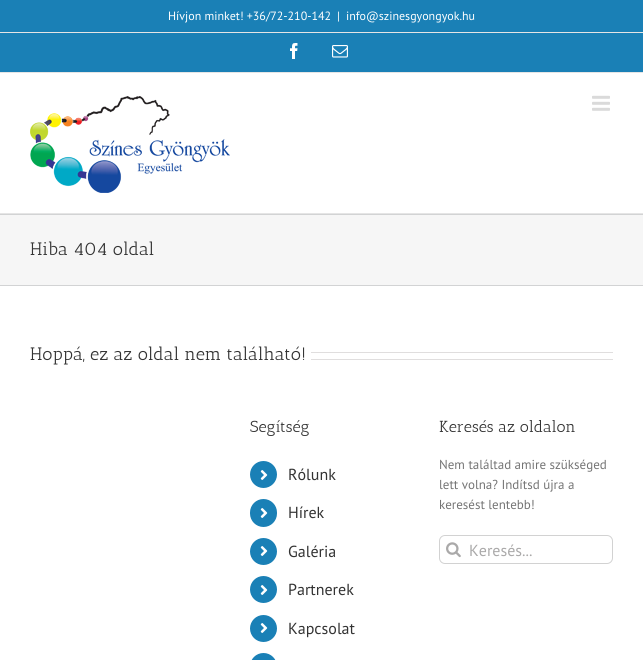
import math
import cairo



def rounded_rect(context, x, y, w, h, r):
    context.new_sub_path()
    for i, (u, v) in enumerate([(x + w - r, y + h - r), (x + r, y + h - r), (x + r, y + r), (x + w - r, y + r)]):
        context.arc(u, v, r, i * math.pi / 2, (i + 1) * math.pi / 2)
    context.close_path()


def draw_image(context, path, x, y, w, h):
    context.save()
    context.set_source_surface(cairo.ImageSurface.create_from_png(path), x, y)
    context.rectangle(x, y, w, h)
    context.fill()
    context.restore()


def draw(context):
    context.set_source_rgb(246 / 255, 246 / 255, 246 / 255)
    context.paint()
    context.set_source_rgb(26 / 255, 128 / 255, 182 / 255)
    context.rectangle(0, 0, 643, 72)
    context.fill()
    context.set_source_rgb(229 / 255, 229 / 255, 229 / 255)
    context.rectangle(0, 72, 643, 1)
    context.fill()
    context.rectangle(0, 32, 643, 1)
    context.fill()
    draw_image(context, "images/1.png", 290, 43, 8, 16)
    draw_image(context, "images/2.png", 332, 45, 16, 13)
    context.set_source_rgb(1, 1, 1)
    context.rectangle(0, 73, 643, 140)
    context.fill()
    context.set_source_rgb(229 / 255, 229 / 255, 229 / 255)
    context.rectangle(0, 213, 643, 1)
    context.fill()
    draw_image(context, "images/3.png", 30, 96, 200, 97)
    draw_image(context, "images/4.png", 592, 95, 18, 16)
    context.set_source_rgb(210 / 255, 211 / 255, 212 / 255)
    context.rectangle(0, 214, 643, 1)
    context.fill()
    context.rectangle(0, 285, 643, 1)
    context.fill()
    context.set_source_rgb(1, 1, 1)
    context.rectangle(0, 286, 643, 374)
    context.fill()
    context.set_source_rgb(224 / 255, 222 / 255, 222 / 255)
    context.rectangle(311, 352, 302, 1)
    context.fill()
    context.rectangle(311, 359, 302, 1)
    context.fill()
    context.set_source_rgb(26 / 255, 128 / 255, 182 / 255)
    context.arc(263.5, 474.5, 13.5, 0, 2 * math.pi)
    context.fill()
    draw_image(context, "images/5.png", 260, 470, 8, 10)
    rounded_rect(context, 250, 499, 27, 28, 13.5)
    context.fill()
    draw_image(context, "images/5.png", 260, 508, 8, 10)
    context.arc(263.5, 551.5, 13.5, 0, 2 * math.pi)
    context.fill()
    draw_image(context, "images/5.png", 260, 546, 8, 10)
    context.arc(263.5, 589.5, 13.5, 0, 2 * math.pi)
    context.fill()
    draw_image(context, "images/5.png", 260, 585, 8, 10)
    context.arc(263.5, 628.5, 13.5, 0, 2 * math.pi)
    context.fill()
    draw_image(context, "images/5.png", 260, 623, 8, 10)
    rounded_rect(context, 250, 653, 27, 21, 13.5)
    context.fill()
    rounded_rect(context, 439.5, 535.5, 173, 28, 5.5)
    context.set_source_rgb(210 / 255, 210 / 255, 210 / 255)
    context.set_line_width(1)
    context.stroke()
    draw_image(context, "images/6.png", 446, 542, 15, 16)
    context.select_font_face("PT Sans")
    context.set_font_size(12)
    context.set_source_rgb(1, 1, 1)
    context.move_to(168, 20)
    context.show_text("Hívjon minket! +36/72-210-142")
    context.move_to(337, 20)
    context.show_text("|")
    context.move_to(346, 20)
    context.show_text("info@szinesgyongyok.hu")
    context.select_font_face("Antic Slab")
    context.set_font_size(18)
    context.set_source_rgb(51 / 255, 51 / 255, 51 / 255)
    context.move_to(30, 255)
    context.show_text("Hiba 404 oldal")
    context.move_to(30, 360)
    context.show_text("Hoppá, ez az oldal nem található!")
    context.set_font_size(16)
    context.move_to(250, 432)
    context.show_text("Segítség")
    context.select_font_face("PT Sans")
    context.move_to(288, 480)
    context.show_text("Rólunk")
    context.move_to(288, 518)
    context.show_text("Hírek")
    context.move_to(288, 557)
    context.show_text("Galéria")
    context.move_to(288, 595)
    context.show_text("Partnerek")
    context.move_to(288, 634)
    context.show_text("Kapcsolat")
    context.select_font_face("Antic Slab")
    context.move_to(439, 432)
    context.show_text("Keresés az oldalon")
    context.select_font_face("PT Sans")
    context.set_font_size(13)
    context.set_source_rgb(116 / 255, 116 / 255, 116 / 255)
    context.move_to(439, 469)
    context.show_text("Nem találtad amire szükséged")
    context.move_to(439, 489)
    context.show_text("lett volna? Indítsd újra a")
    context.move_to(439, 509)
    context.show_text("keresést lentebb!")
    context.set_font_size(16)
    context.set_source_rgb(170 / 255, 169 / 255, 169 / 255)
    context.move_to(469, 556)
    context.show_text("Keresés...")


surface = cairo.ImageSurface(cairo.Format.RGB24, 643, 660)
context = cairo.Context(surface)
options = cairo.FontOptions()
options.set_hint_metrics(cairo.HintMetrics.OFF)
options.set_hint_style(cairo.HintStyle.NONE)
context.set_font_options(options)
context.set_miter_limit(4)
draw(context)
surface.write_to_png("out.png")
